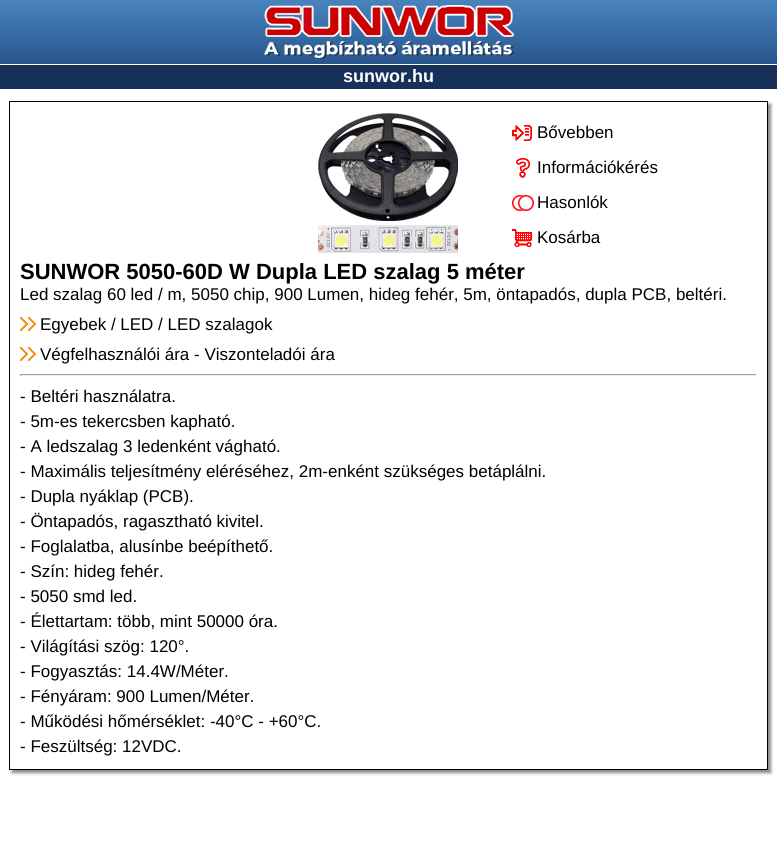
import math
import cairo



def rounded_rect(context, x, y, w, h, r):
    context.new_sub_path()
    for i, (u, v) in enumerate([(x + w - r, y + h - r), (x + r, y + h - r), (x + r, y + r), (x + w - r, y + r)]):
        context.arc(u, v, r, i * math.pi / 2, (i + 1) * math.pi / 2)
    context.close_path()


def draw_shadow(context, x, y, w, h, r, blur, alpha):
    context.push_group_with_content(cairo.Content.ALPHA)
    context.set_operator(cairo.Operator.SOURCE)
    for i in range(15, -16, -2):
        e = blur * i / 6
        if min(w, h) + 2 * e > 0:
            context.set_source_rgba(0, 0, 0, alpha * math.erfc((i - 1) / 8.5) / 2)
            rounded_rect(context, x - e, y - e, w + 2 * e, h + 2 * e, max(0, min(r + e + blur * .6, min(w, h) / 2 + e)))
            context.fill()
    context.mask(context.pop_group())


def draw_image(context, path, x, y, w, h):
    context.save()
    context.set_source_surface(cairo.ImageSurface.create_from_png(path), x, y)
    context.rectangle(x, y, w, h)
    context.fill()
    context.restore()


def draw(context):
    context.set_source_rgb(1, 1, 1)
    context.paint()
    draw_image(context, "images/1.png", 0, 0, 777, 89)
    draw_image(context, "images/2.png", 264, 5, 250, 54)
    context.save()
    context.set_fill_rule(cairo.FillRule.EVEN_ODD)
    context.new_path()
    context.move_to(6, 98)
    context.line_to(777, 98)
    context.line_to(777, 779)
    context.line_to(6, 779)
    context.close_path()
    context.move_to(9, 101)
    context.line_to(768, 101)
    context.line_to(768, 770)
    context.line_to(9, 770)
    context.close_path()
    context.clip()
    context.set_source_rgb(136 / 255, 136 / 255, 136 / 255)
    draw_shadow(context, 12, 104, 759, 669, 0, 1.5, 1)
    context.restore()
    context.rectangle(9.5, 101.5, 758, 668)
    context.set_source_rgb(0, 0, 0)
    context.set_line_width(1)
    context.stroke()
    draw_image(context, "images/3.png", 318, 113, 140, 140)
    draw_image(context, "images/4.png", 512, 125, 20, 16)
    draw_image(context, "images/5.png", 516, 158, 14, 20)
    draw_image(context, "images/6.png", 512, 195, 22, 16)
    draw_image(context, "images/7.png", 512, 229, 20, 18)
    draw_image(context, "images/8.png", 20, 317, 16, 14)
    draw_image(context, "images/8.png", 20, 347, 16, 14)
    context.set_source_rgb(159 / 255, 159 / 255, 159 / 255)
    context.rectangle(20, 374, 737, 1)
    context.fill()
    context.set_source_rgb(238 / 255, 238 / 255, 238 / 255)
    context.rectangle(756, 374, 1, 2)
    context.fill()
    context.rectangle(20, 375, 737, 1)
    context.fill()
    context.set_source_rgb(159 / 255, 159 / 255, 159 / 255)
    context.rectangle(20, 374, 1, 2)
    context.fill()
    context.select_font_face("Liberation Sans", cairo.FontSlant.NORMAL, cairo.FontWeight.BOLD)
    context.set_font_size(18)
    context.set_source_rgb(1, 1, 1)
    context.move_to(343, 82)
    context.show_text("sunwor.hu")
    context.select_font_face("Liberation Sans")
    context.set_font_size(17)
    context.set_source_rgb(0, 0, 0)
    context.move_to(537, 138)
    context.show_text("Bővebben")
    context.move_to(537, 173)
    context.show_text("Információkérés")
    context.move_to(537, 208)
    context.show_text("Hasonlók")
    context.move_to(537, 243)
    context.show_text("Kosárba")
    context.select_font_face("Liberation Sans", cairo.FontSlant.NORMAL, cairo.FontWeight.BOLD)
    context.set_font_size(22)
    context.move_to(20, 279)
    context.show_text("SUNWOR 5050-60D W Dupla LED szalag 5 méter")
    context.select_font_face("Liberation Sans")
    context.set_font_size(17)
    context.move_to(20, 300)
    context.show_text("Led szalag 60 led / m, 5050 chip, 900 Lumen, hideg fehér, 5m, öntapadós, dupla PCB, beltéri.")
    context.move_to(40, 330)
    context.show_text("Egyebek / LED / LED szalagok")
    context.move_to(40, 360)
    context.show_text("Végfelhasználói ára - Viszonteladói ára")
    context.move_to(20, 402)
    context.show_text("- Beltéri használatra.")
    context.move_to(20, 427)
    context.show_text("- 5m-es tekercsben kapható.")
    context.move_to(20, 452)
    context.show_text("- A ledszalag 3 ledenként vágható.")
    context.move_to(20, 477)
    context.show_text("- Maximális teljesítmény eléréséhez, 2m-enként szükséges betáplálni.")
    context.move_to(20, 502)
    context.show_text("- Dupla nyáklap (PCB).")
    context.move_to(20, 527)
    context.show_text("- Öntapadós, ragasztható kivitel.")
    context.move_to(20, 552)
    context.show_text("- Foglalatba, alusínbe beépíthető.")
    context.move_to(20, 577)
    context.show_text("- Szín: hideg fehér.")
    context.move_to(20, 602)
    context.show_text("- 5050 smd led.")
    context.move_to(20, 627)
    context.show_text("- Élettartam: több, mint 50000 óra.")
    context.move_to(20, 652)
    context.show_text("- Világítási szög: 120°.")
    context.move_to(20, 677)
    context.show_text("- Fogyasztás: 14.4W/Méter.")
    context.move_to(20, 702)
    context.show_text("- Fényáram: 900 Lumen/Méter.")
    context.move_to(20, 727)
    context.show_text("- Működési hőmérséklet: -40°C - +60°C.")
    context.move_to(20, 752)
    context.show_text("- Feszültség: 12VDC.")


surface = cairo.ImageSurface(cairo.Format.RGB24, 777, 855)
context = cairo.Context(surface)
options = cairo.FontOptions()
options.set_hint_metrics(cairo.HintMetrics.OFF)
options.set_hint_style(cairo.HintStyle.NONE)
context.set_font_options(options)
context.set_miter_limit(4)
draw(context)
surface.write_to_png("out.png")
